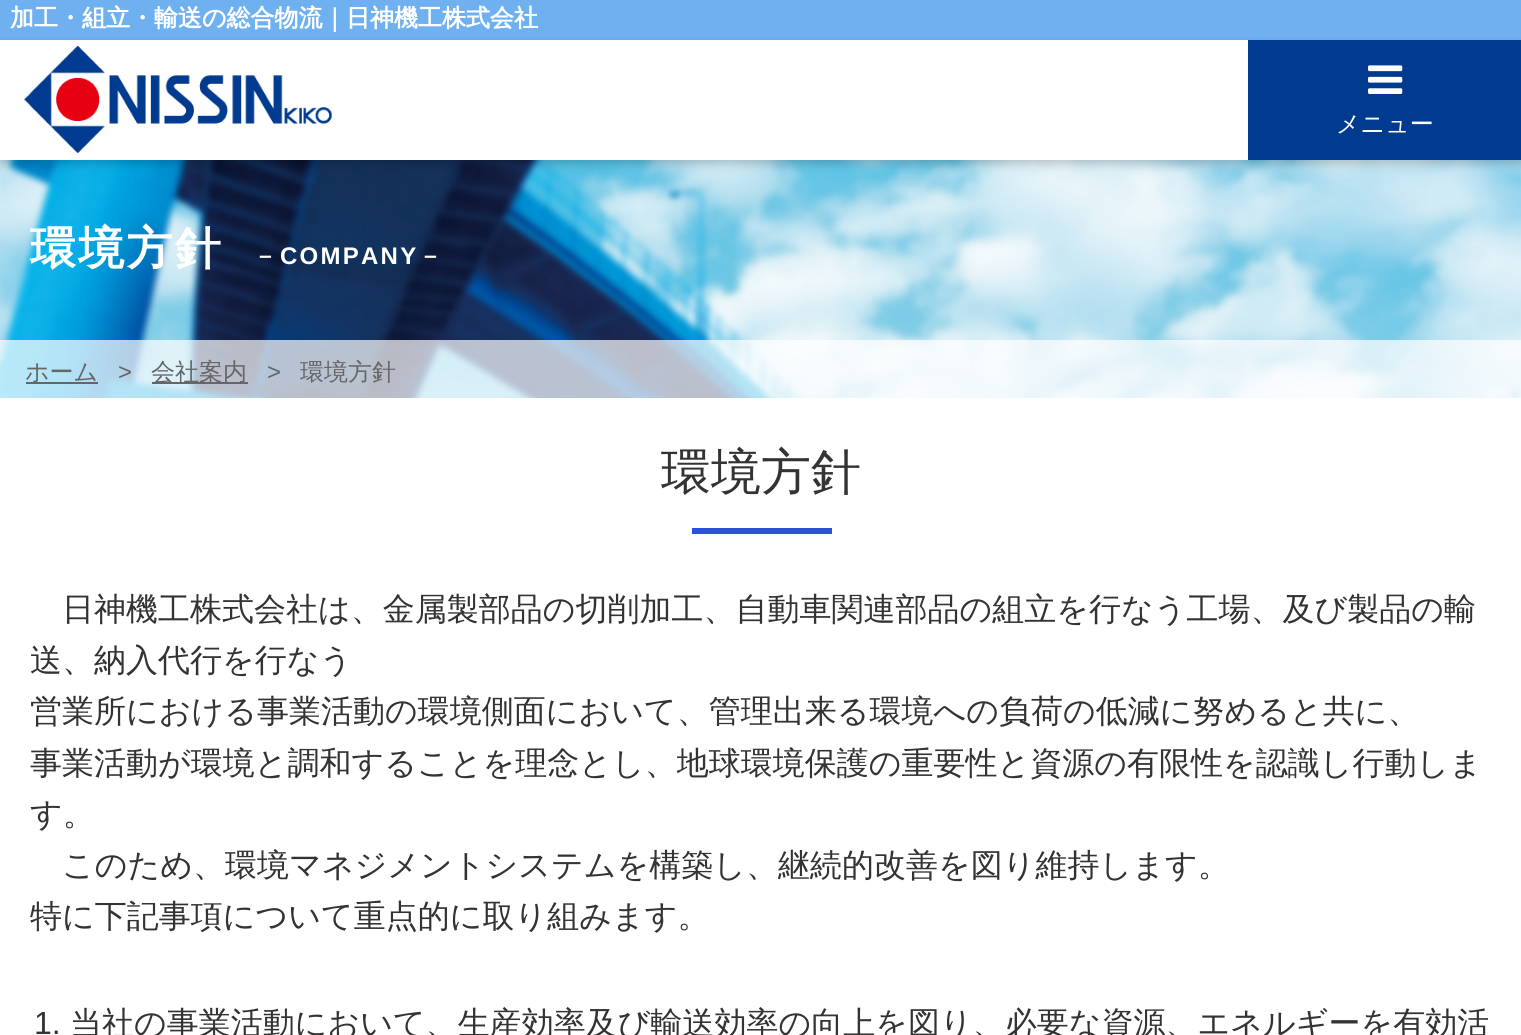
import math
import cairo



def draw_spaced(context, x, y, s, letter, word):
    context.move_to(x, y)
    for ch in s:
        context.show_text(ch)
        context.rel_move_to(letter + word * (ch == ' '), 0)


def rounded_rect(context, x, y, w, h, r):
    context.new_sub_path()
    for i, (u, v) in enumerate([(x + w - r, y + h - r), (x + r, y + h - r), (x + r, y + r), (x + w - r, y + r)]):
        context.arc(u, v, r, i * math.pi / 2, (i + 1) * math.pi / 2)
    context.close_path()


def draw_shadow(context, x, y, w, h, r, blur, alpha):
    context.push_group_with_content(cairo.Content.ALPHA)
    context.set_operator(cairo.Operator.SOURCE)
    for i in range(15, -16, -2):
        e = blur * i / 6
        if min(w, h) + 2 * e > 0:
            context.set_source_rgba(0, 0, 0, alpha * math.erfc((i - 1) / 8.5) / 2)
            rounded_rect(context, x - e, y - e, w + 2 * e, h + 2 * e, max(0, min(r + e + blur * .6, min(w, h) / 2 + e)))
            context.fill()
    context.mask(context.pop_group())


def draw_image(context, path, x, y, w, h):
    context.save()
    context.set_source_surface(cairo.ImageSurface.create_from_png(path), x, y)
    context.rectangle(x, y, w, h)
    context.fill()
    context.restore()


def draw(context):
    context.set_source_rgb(1, 1, 1)
    context.paint()
    draw_image(context, "images/1.png", 0, 160, 1521, 238)
    context.set_source_rgb(111 / 255, 177 / 255, 240 / 255)
    context.rectangle(0, 0, 1521, 40)
    context.fill()
    context.set_source_rgb(0, 0, 0)
    draw_shadow(context, 0, 44, 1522, 120, 0, 5, 0.2)
    context.set_source_rgb(1, 1, 1)
    context.rectangle(0, 40, 1248, 120)
    context.fill()
    draw_image(context, "images/2.png", 24, 45, 308, 109)
    context.set_source_rgb(0, 59 / 255, 143 / 255)
    context.rectangle(1248, 40, 273, 120)
    context.fill()
    draw_image(context, "images/3.png", 1368, 65, 35, 29)
    context.set_source_rgba(1, 1, 1, 0.7)
    context.rectangle(0, 340, 1521, 58)
    context.fill()
    context.set_source_rgb(102 / 255, 102 / 255, 102 / 255)
    context.rectangle(26, 382, 72, 2)
    context.fill()
    context.rectangle(152, 382, 96, 2)
    context.fill()
    context.set_source_rgb(42 / 255, 81 / 255, 214 / 255)
    context.rectangle(692, 528, 140, 6)
    context.fill()
    context.select_font_face("WenQuanYi Zen Hei", cairo.FontSlant.NORMAL, cairo.FontWeight.BOLD)
    context.set_font_size(24)
    context.set_source_rgb(1, 1, 1)
    context.move_to(10, 26)
    context.show_text("加工・組立・輸送の総合物流｜日神機工株式会社")
    context.select_font_face("WenQuanYi Zen Hei Medium")
    context.move_to(1336, 132)
    context.show_text("メニュー")
    context.select_font_face("WenQuanYi Zen Hei", cairo.FontSlant.NORMAL, cairo.FontWeight.BOLD)
    context.set_font_size(46)
    draw_spaced(context, 30, 264, "環境方針", 2.25, 0)
    context.set_font_size(24)
    draw_spaced(context, 253, 264, "－", 2.25, 0)
    context.select_font_face("Liberation Sans", cairo.FontSlant.NORMAL, cairo.FontWeight.BOLD)
    draw_spaced(context, 280, 264, "COMPANY", 2.25, 0)
    context.select_font_face("WenQuanYi Zen Hei", cairo.FontSlant.NORMAL, cairo.FontWeight.BOLD)
    draw_spaced(context, 418, 264, "－", 2.25, 0)
    context.select_font_face("WenQuanYi Zen Hei Medium")
    context.set_source_rgb(102 / 255, 102 / 255, 102 / 255)
    context.move_to(25, 380)
    context.show_text("ホーム")
    context.select_font_face("Liberation Sans")
    context.move_to(118, 380)
    context.show_text(">")
    context.select_font_face("WenQuanYi Zen Hei Medium")
    context.move_to(151, 380)
    context.show_text("会社案内")
    context.select_font_face("Liberation Sans")
    context.move_to(267, 380)
    context.show_text(">")
    context.select_font_face("WenQuanYi Zen Hei Medium")
    context.move_to(300, 380)
    context.show_text("環境方針")
    context.set_font_size(50)
    context.set_source_rgb(51 / 255, 51 / 255, 51 / 255)
    context.move_to(661, 489)
    context.show_text("環境方針")
    context.set_font_size(32)
    context.move_to(62, 620)
    context.show_text("日神機工株式会社は、金属製部品の切削加工、自動車関連部品の組立を行なう工場、及び製品の輸")
    context.move_to(30, 671)
    context.show_text("送、納入代行を行なう")
    context.move_to(30, 722)
    context.show_text("営業所における事業活動の環境側面において、管理出来る環境への負荷の低減に努めると共に、")
    context.move_to(30, 774)
    context.show_text("事業活動が環境と調和することを理念とし、地球環境保護の重要性と資源の有限性を認識し行動しま")
    context.move_to(30, 825)
    context.show_text("す。")
    context.move_to(62, 876)
    context.show_text("このため、環境マネジメントシステムを構築し、継続的改善を図り維持します。")
    context.move_to(30, 927)
    context.show_text("特に下記事項について重点的に取り組みます。")
    context.select_font_face("Liberation Sans")
    context.move_to(34, 1034)
    context.show_text("1.")
    context.select_font_face("WenQuanYi Zen Hei Medium")
    context.move_to(70, 1034)
    context.show_text("当社の事業活動において、生産効率及び輸送効率の向上を図り、必要な資源、エネルギーを有効活")


surface = cairo.ImageSurface(cairo.Format.RGB24, 1521, 1035)
context = cairo.Context(surface)
options = cairo.FontOptions()
options.set_hint_metrics(cairo.HintMetrics.OFF)
options.set_hint_style(cairo.HintStyle.NONE)
context.set_font_options(options)
context.set_miter_limit(4)
draw(context)
surface.write_to_png("out.png")
